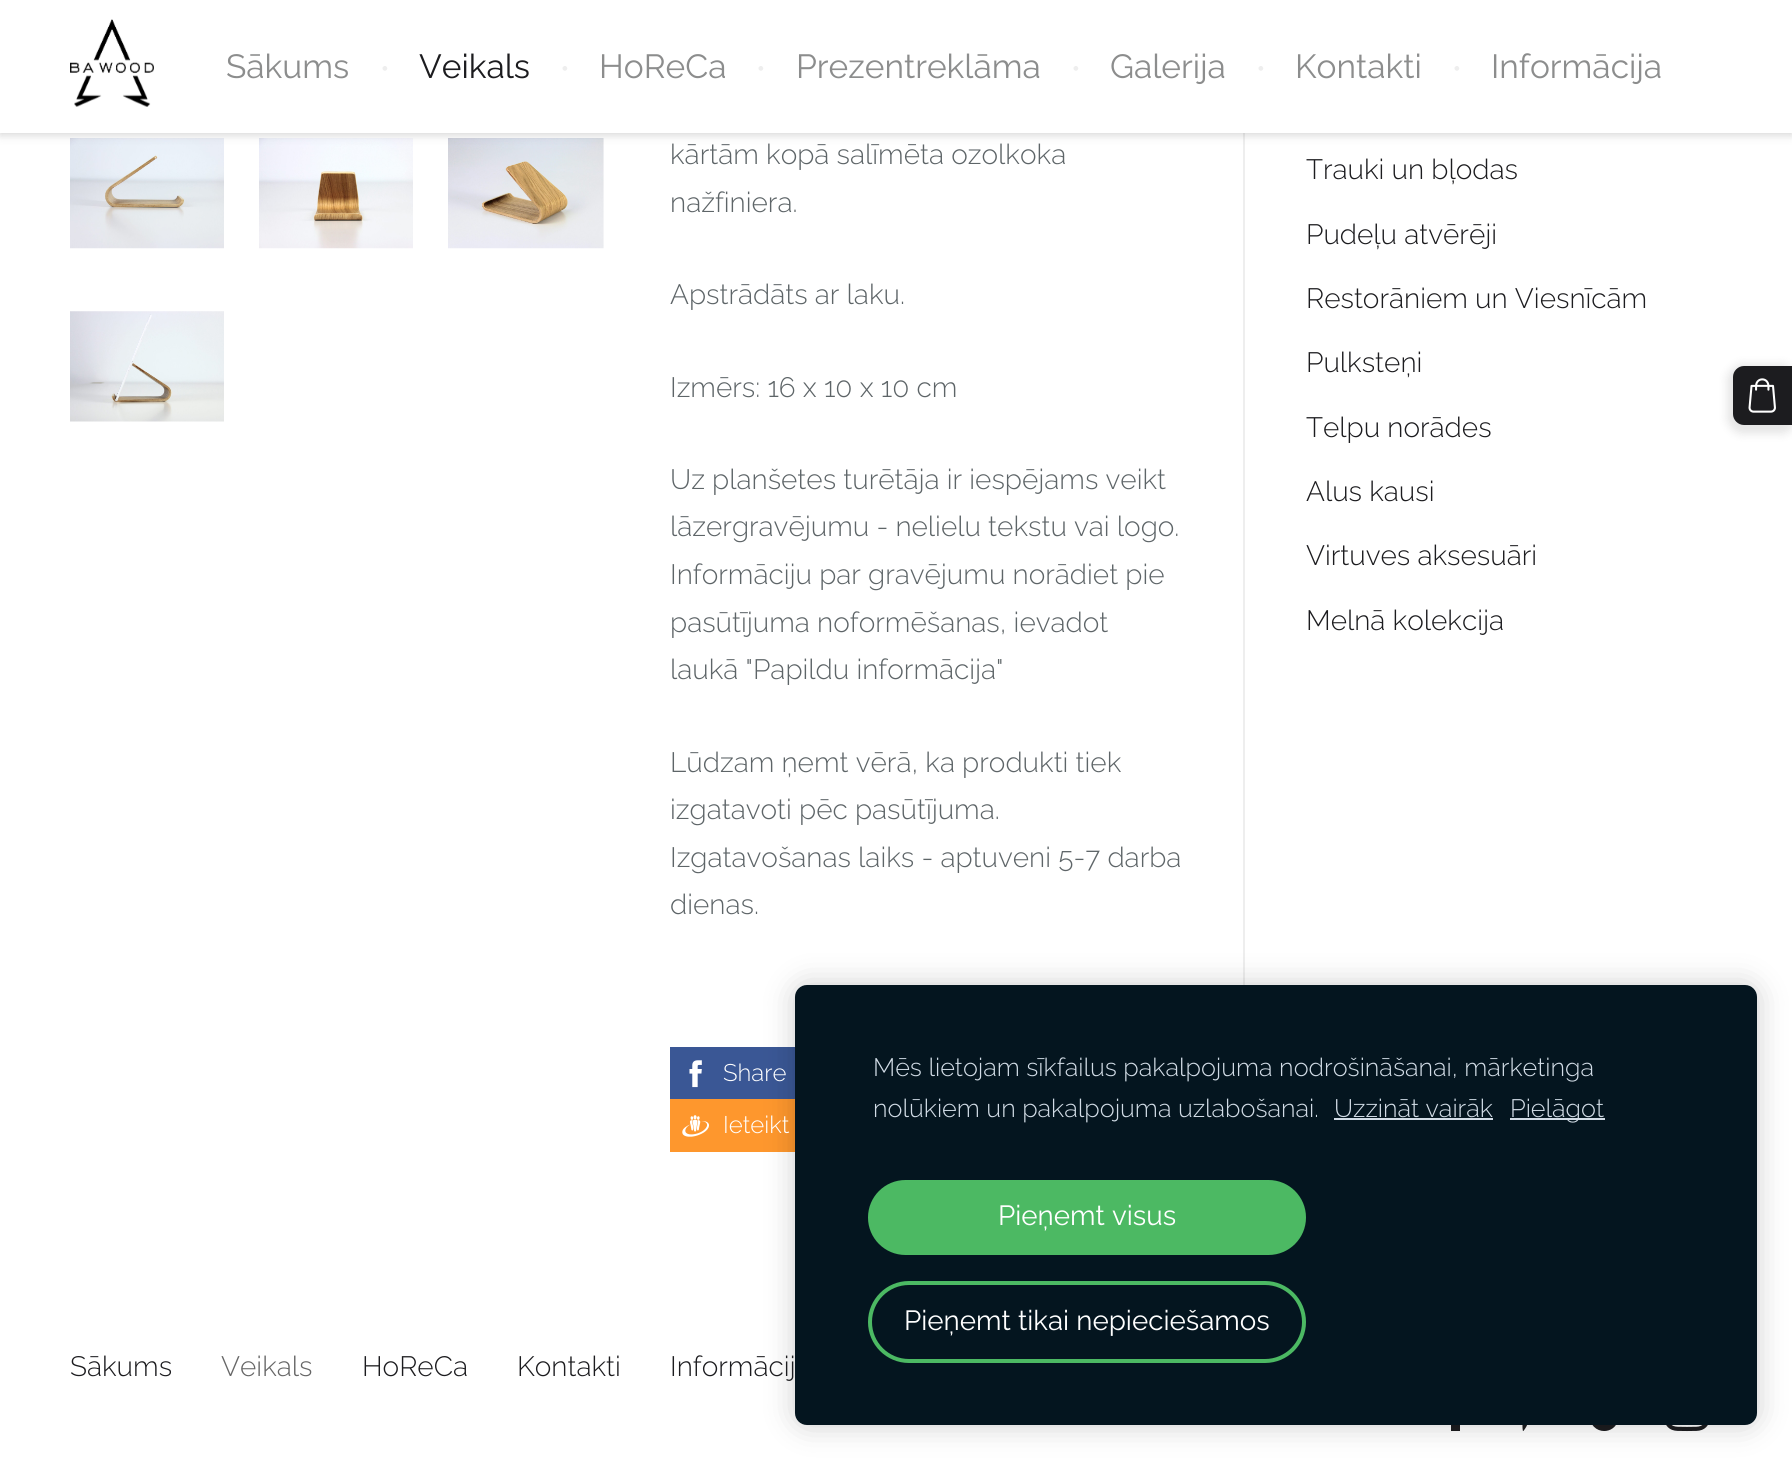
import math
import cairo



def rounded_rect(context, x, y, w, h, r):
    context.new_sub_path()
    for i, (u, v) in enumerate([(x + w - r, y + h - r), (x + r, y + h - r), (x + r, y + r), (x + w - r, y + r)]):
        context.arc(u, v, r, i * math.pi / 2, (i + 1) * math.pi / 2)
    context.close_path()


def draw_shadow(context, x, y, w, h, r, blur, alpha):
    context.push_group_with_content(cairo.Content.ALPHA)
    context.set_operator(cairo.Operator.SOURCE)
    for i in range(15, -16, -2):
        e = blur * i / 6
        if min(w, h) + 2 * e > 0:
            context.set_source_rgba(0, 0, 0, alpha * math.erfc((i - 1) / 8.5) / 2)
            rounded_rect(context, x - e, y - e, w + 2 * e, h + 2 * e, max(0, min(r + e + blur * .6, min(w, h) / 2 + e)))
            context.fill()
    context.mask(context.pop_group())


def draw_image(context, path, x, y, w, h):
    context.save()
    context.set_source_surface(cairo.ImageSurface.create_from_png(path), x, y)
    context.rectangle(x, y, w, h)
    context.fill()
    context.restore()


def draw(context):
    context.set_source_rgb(1, 1, 1)
    context.paint()
    draw_image(context, "images/2.png", 70, 138, 154, 111)
    draw_image(context, "images/3.png", 259, 138, 154, 111)
    draw_image(context, "images/4.png", 448, 138, 156, 111)
    context.set_source_rgb(238 / 255, 238 / 255, 238 / 255)
    context.rectangle(1243, 133, 2, 852)
    context.fill()
    context.set_source_rgb(0, 0, 0)
    draw_shadow(context, 0, 2, 1792, 133, 0, 4.5, 0.17)
    context.set_source_rgb(1, 1, 1)
    context.rectangle(0, 0, 1792, 133)
    context.fill()
    draw_image(context, "images/1.png", 70, 19, 84, 88)
    draw_image(context, "images/5.png", 70, 311, 154, 111)
    context.set_source_rgb(58 / 255, 87 / 255, 149 / 255)
    context.rectangle(670, 1047, 125, 52)
    context.fill()
    draw_image(context, "images/6.png", 689, 1060, 13, 28)
    context.set_source_rgb(254 / 255, 151 / 255, 45 / 255)
    context.rectangle(670, 1099, 125, 53)
    context.fill()
    draw_image(context, "images/7.png", 682, 1115, 27, 22)
    context.set_source_rgb(0, 0, 0)
    draw_shadow(context, 1727, 364, 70, 70, 16, 4.5, 0.1)
    context.set_source_rgb(28 / 255, 28 / 255, 31 / 255)
    context.new_path()
    context.move_to(1744, 366)
    context.line_to(1792, 366)
    context.line_to(1792, 425)
    context.line_to(1744, 425)
    context.curve_to(1738, 425, 1733, 420, 1733, 414)
    context.line_to(1733, 377)
    context.curve_to(1733, 371, 1738, 366, 1744, 366)
    context.close_path()
    context.fill()
    draw_image(context, "images/8.png", 1748, 378, 28, 35)
    context.new_path()
    context.move_to(1460, 1431)
    context.line_to(1460, 1410)
    context.line_to(1467, 1410)
    context.line_to(1468, 1402)
    context.line_to(1460, 1402)
    context.curve_to(1460, 1393, 1459, 1393, 1468, 1393)
    context.line_to(1468, 1385)
    context.curve_to(1453, 1384, 1451, 1388, 1451, 1402)
    context.line_to(1444, 1402)
    context.line_to(1444, 1410)
    context.line_to(1451, 1410)
    context.line_to(1451, 1431)
    context.close_path()
    context.fill()
    draw_image(context, "images/9.png", 1522, 1425, 5, 6)
    draw_image(context, "images/10.png", 1592, 1425, 24, 6)
    draw_image(context, "images/11.png", 1666, 1425, 42, 7)
    context.set_source_rgb(0, 0, 0)
    draw_shadow(context, 795, 985, 962, 440, 12, 15, 0.2)
    context.set_source_rgb(4 / 255, 21 / 255, 31 / 255)
    rounded_rect(context, 795, 985, 962, 440, 12)
    context.fill()
    context.set_source_rgb(210 / 255, 220 / 255, 230 / 255)
    context.rectangle(1334, 1118, 159, 2)
    context.fill()
    context.rectangle(1510, 1118, 95, 2)
    context.fill()
    context.set_source_rgb(76 / 255, 185 / 255, 99 / 255)
    rounded_rect(context, 868, 1180, 438, 75, 37.5)
    context.fill()
    rounded_rect(context, 870, 1283, 434, 78, 39)
    context.set_line_width(4)
    context.stroke()
    context.select_font_face("Raleway")
    context.set_font_size(33.5)
    context.set_source_rgb(140 / 255, 141 / 255, 141 / 255)
    context.move_to(226, 78)
    context.show_text("Sākums")
    context.select_font_face("Raleway Light")
    context.set_font_size(28)
    context.set_source_rgb(238 / 255, 238 / 255, 238 / 255)
    context.move_to(380, 78)
    context.show_text("•")
    context.select_font_face("Raleway")
    context.set_font_size(33.5)
    context.set_source_rgb(28 / 255, 28 / 255, 31 / 255)
    context.move_to(419, 78)
    context.show_text("Veikals")
    context.select_font_face("Raleway Light")
    context.set_font_size(28)
    context.set_source_rgb(238 / 255, 238 / 255, 238 / 255)
    context.move_to(560, 78)
    context.show_text("•")
    context.select_font_face("Raleway")
    context.set_font_size(33.5)
    context.set_source_rgb(140 / 255, 141 / 255, 141 / 255)
    context.move_to(599, 78)
    context.show_text("HoReCa")
    context.select_font_face("Raleway Light")
    context.set_font_size(28)
    context.set_source_rgb(238 / 255, 238 / 255, 238 / 255)
    context.move_to(756, 78)
    context.show_text("•")
    context.select_font_face("Raleway")
    context.set_font_size(33.5)
    context.set_source_rgb(140 / 255, 141 / 255, 141 / 255)
    context.move_to(796, 78)
    context.show_text("Prezentreklāma")
    context.select_font_face("Raleway Light")
    context.set_font_size(28)
    context.set_source_rgb(238 / 255, 238 / 255, 238 / 255)
    context.move_to(1071, 78)
    context.show_text("•")
    context.select_font_face("Raleway")
    context.set_font_size(33.5)
    context.set_source_rgb(140 / 255, 141 / 255, 141 / 255)
    context.move_to(1110, 78)
    context.show_text("Galerija")
    context.select_font_face("Raleway Light")
    context.set_font_size(28)
    context.set_source_rgb(238 / 255, 238 / 255, 238 / 255)
    context.move_to(1256, 78)
    context.show_text("•")
    context.select_font_face("Raleway")
    context.set_font_size(33.5)
    context.set_source_rgb(140 / 255, 141 / 255, 141 / 255)
    context.move_to(1295, 78)
    context.show_text("Kontakti")
    context.select_font_face("Raleway Light")
    context.set_font_size(28)
    context.set_source_rgb(238 / 255, 238 / 255, 238 / 255)
    context.move_to(1452, 78)
    context.show_text("•")
    context.select_font_face("Raleway")
    context.set_font_size(33.5)
    context.set_source_rgb(140 / 255, 141 / 255, 141 / 255)
    context.move_to(1491, 78)
    context.show_text("Informācija")
    context.select_font_face("Raleway Light")
    context.set_font_size(28)
    context.set_source_rgb(94 / 255, 101 / 255, 104 / 255)
    context.move_to(670, 164)
    context.show_text("kārtām kopā salīmēta ozolkoka")
    context.move_to(670, 212)
    context.show_text("nažfiniera.")
    context.move_to(670, 304)
    context.show_text("Apstrādāts ar laku.")
    context.move_to(670, 397)
    context.show_text("Izmērs: 16 x 10 x 10 cm")
    context.move_to(670, 489)
    context.show_text("Uz planšetes turētāja ir iespējams veikt")
    context.move_to(670, 536)
    context.show_text("lāzergravējumu - nelielu tekstu vai logo.")
    context.move_to(670, 584)
    context.show_text("Informāciju par gravējumu norādiet pie")
    context.move_to(670, 632)
    context.show_text("pasūtījuma noformēšanas, ievadot")
    context.move_to(670, 679)
    context.show_text("laukā \"Papildu informācija\"")
    context.move_to(670, 772)
    context.show_text("Lūdzam ņemt vērā, ka produkti tiek")
    context.move_to(670, 819)
    context.show_text("izgatavoti pēc pasūtījuma.")
    context.move_to(670, 867)
    context.show_text("Izgatavošanas laiks - aptuveni 5-7 darba")
    context.move_to(670, 914)
    context.show_text("dienas.")
    context.set_font_size(24)
    context.set_source_rgb(1, 1, 1)
    context.move_to(723, 1081)
    context.show_text("Share")
    context.move_to(723, 1133)
    context.show_text("Ieteikt")
    context.set_font_size(28)
    context.set_source_rgb(28 / 255, 28 / 255, 31 / 255)
    context.move_to(1306, 179)
    context.show_text("Trauki un bļodas")
    context.move_to(1306, 244)
    context.show_text("Pudeļu atvērēji")
    context.move_to(1306, 308)
    context.show_text("Restorāniem un Viesnīcām")
    context.move_to(1306, 372)
    context.show_text("Pulksteņi")
    context.move_to(1306, 437)
    context.show_text("Telpu norādes")
    context.move_to(1306, 501)
    context.show_text("Alus kausi")
    context.move_to(1306, 565)
    context.show_text("Virtuves aksesuāri")
    context.move_to(1306, 630)
    context.show_text("Melnā kolekcija")
    context.set_font_size(25.2)
    context.set_source_rgb(210 / 255, 220 / 255, 230 / 255)
    context.move_to(873, 1076)
    context.show_text("Mēs lietojam sīkfailus pakalpojuma nodrošināšanai, mārketinga")
    context.move_to(873, 1117)
    context.show_text("nolūkiem un pakalpojuma uzlabošanai.")
    context.move_to(1334, 1117)
    context.show_text("Uzzināt vairāk")
    context.move_to(1510, 1117)
    context.show_text("Pielāgot")
    context.select_font_face("Raleway")
    context.set_font_size(27.75)
    context.set_source_rgb(1, 1, 1)
    context.move_to(998, 1225)
    context.show_text("Pieņemt visus")
    context.move_to(904, 1330)
    context.show_text("Pieņemt tikai nepieciešamos")
    context.select_font_face("Raleway Light")
    context.set_font_size(28)
    context.set_source_rgb(28 / 255, 28 / 255, 31 / 255)
    context.move_to(70, 1376)
    context.show_text("Sākums")
    context.set_source_rgb(102 / 255, 102 / 255, 102 / 255)
    context.move_to(221, 1376)
    context.show_text("Veikals")
    context.set_source_rgb(28 / 255, 28 / 255, 31 / 255)
    context.move_to(362, 1376)
    context.show_text("HoReCa")
    context.move_to(517, 1376)
    context.show_text("Kontakti")
    context.move_to(670, 1376)
    context.show_text("Informācij")


surface = cairo.ImageSurface(cairo.Format.RGB24, 1792, 1458)
context = cairo.Context(surface)
options = cairo.FontOptions()
options.set_hint_metrics(cairo.HintMetrics.OFF)
options.set_hint_style(cairo.HintStyle.NONE)
context.set_font_options(options)
context.set_miter_limit(4)
draw(context)
surface.write_to_png("out.png")
